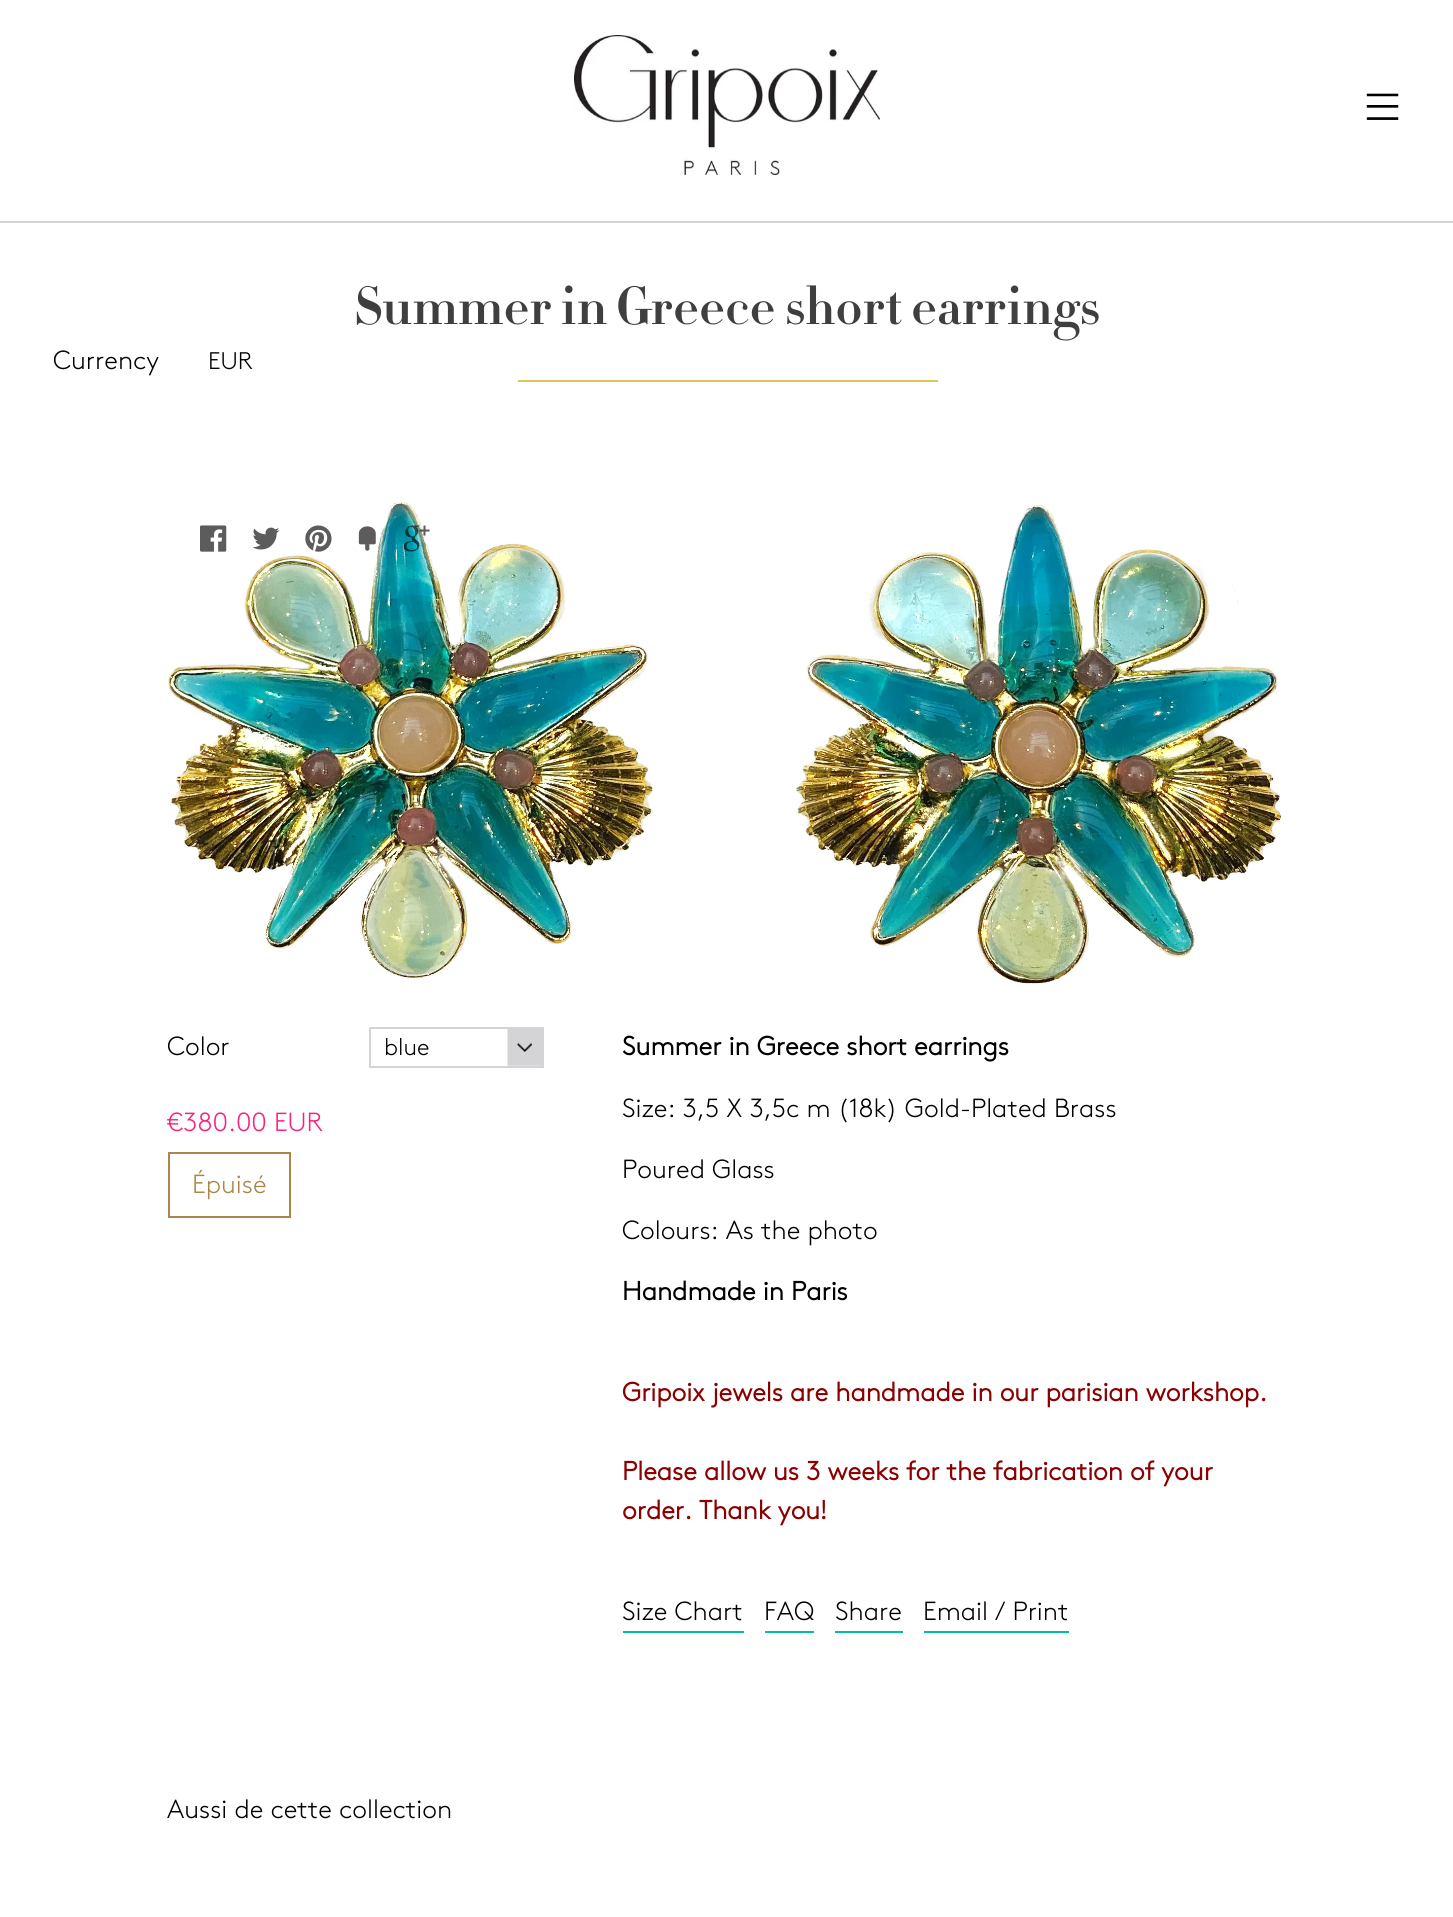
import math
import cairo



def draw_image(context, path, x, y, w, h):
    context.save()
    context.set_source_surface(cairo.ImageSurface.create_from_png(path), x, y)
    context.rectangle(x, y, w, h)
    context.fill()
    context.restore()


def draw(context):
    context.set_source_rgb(1, 1, 1)
    context.paint()
    context.set_source_rgb(212 / 255, 211 / 255, 213 / 255)
    context.rectangle(0, 221, 1453, 2)
    context.fill()
    draw_image(context, "images/1.png", 574, 35, 306, 140)
    draw_image(context, "images/2.png", 1366, 93, 33, 27)
    context.set_source_rgb(228 / 255, 194 / 255, 88 / 255)
    context.rectangle(518, 380, 420, 2)
    context.fill()
    draw_image(context, "images/3.png", 168, 502, 1114, 482)
    draw_image(context, "images/4.png", 200, 525, 27, 27)
    draw_image(context, "images/5.png", 252, 527, 28, 23)
    draw_image(context, "images/6.png", 305, 525, 27, 27)
    draw_image(context, "images/7.png", 358, 526, 18, 25)
    draw_image(context, "images/8.png", 403, 525, 27, 27)
    draw_image(context, "images/9.png", 507, 1029, 35, 37)
    context.rectangle(370, 1028, 173, 39)
    context.set_source_rgb(212 / 255, 211 / 255, 213 / 255)
    context.stroke()
    context.rectangle(169, 1153, 121, 64)
    context.set_source_rgb(168 / 255, 135 / 255, 73 / 255)
    context.stroke()
    context.set_source_rgb(0, 188 / 255, 176 / 255)
    context.rectangle(623, 1631, 121, 2)
    context.fill()
    context.rectangle(765, 1631, 49, 2)
    context.fill()
    context.rectangle(835, 1631, 68, 2)
    context.fill()
    context.rectangle(924, 1631, 145, 2)
    context.fill()
    context.select_font_face("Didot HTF", cairo.FontSlant.NORMAL, cairo.FontWeight.BOLD)
    context.set_font_size(52.5)
    context.set_source_rgb(64 / 255, 63 / 255, 63 / 255)
    context.move_to(354, 324)
    context.show_text("Summer in Greece short earrings")
    context.select_font_face("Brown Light")
    context.set_font_size(26.25)
    context.set_source_rgb(0, 0, 0)
    context.move_to(53, 369)
    context.show_text("Currency")
    context.set_font_size(24)
    context.move_to(208, 369)
    context.show_text("EUR")
    context.set_font_size(26.25)
    context.move_to(167, 1055)
    context.show_text("Color")
    context.set_font_size(24)
    context.move_to(384, 1055)
    context.show_text("blue")
    context.set_font_size(26.25)
    context.set_source_rgb(250 / 255, 32 / 255, 124 / 255)
    context.move_to(167, 1131)
    context.show_text("€380.00 EUR")
    context.set_source_rgb(168 / 255, 135 / 255, 73 / 255)
    context.move_to(192, 1193)
    context.show_text("Épuisé")
    context.select_font_face("Brown", cairo.FontSlant.NORMAL, cairo.FontWeight.BOLD)
    context.set_source_rgb(0, 0, 0)
    context.move_to(622, 1055)
    context.show_text("Summer in Greece short earrings")
    context.select_font_face("Brown Light")
    context.move_to(622, 1117)
    context.show_text("Size: 3,5 X 3,5c m (18k) Gold-Plated Brass")
    context.move_to(622, 1178)
    context.show_text("Poured Glass")
    context.move_to(622, 1239)
    context.show_text("Colours: As the photo")
    context.select_font_face("Brown", cairo.FontSlant.NORMAL, cairo.FontWeight.BOLD)
    context.move_to(622, 1300)
    context.show_text("Handmade in Paris")
    context.set_source_rgb(139 / 255, 0, 0)
    context.move_to(622, 1401)
    context.show_text("Gripoix jewels are handmade in our parisian workshop.")
    context.move_to(622, 1480)
    context.show_text("Please allow us 3 weeks for the fabrication of your")
    context.move_to(622, 1519)
    context.show_text("order. Thank you!")
    context.select_font_face("Brown Light")
    context.set_source_rgb(0, 0, 0)
    context.move_to(622, 1620)
    context.show_text("Size Chart")
    context.move_to(764, 1620)
    context.show_text("FAQ")
    context.move_to(835, 1620)
    context.show_text("Share")
    context.move_to(923, 1620)
    context.show_text("Email / Print")
    context.move_to(167, 1818)
    context.show_text("Aussi de cette collection")


surface = cairo.ImageSurface(cairo.Format.RGB24, 1453, 1917)
context = cairo.Context(surface)
options = cairo.FontOptions()
options.set_hint_metrics(cairo.HintMetrics.OFF)
options.set_hint_style(cairo.HintStyle.NONE)
context.set_font_options(options)
context.set_miter_limit(4)
draw(context)
surface.write_to_png("out.png")
